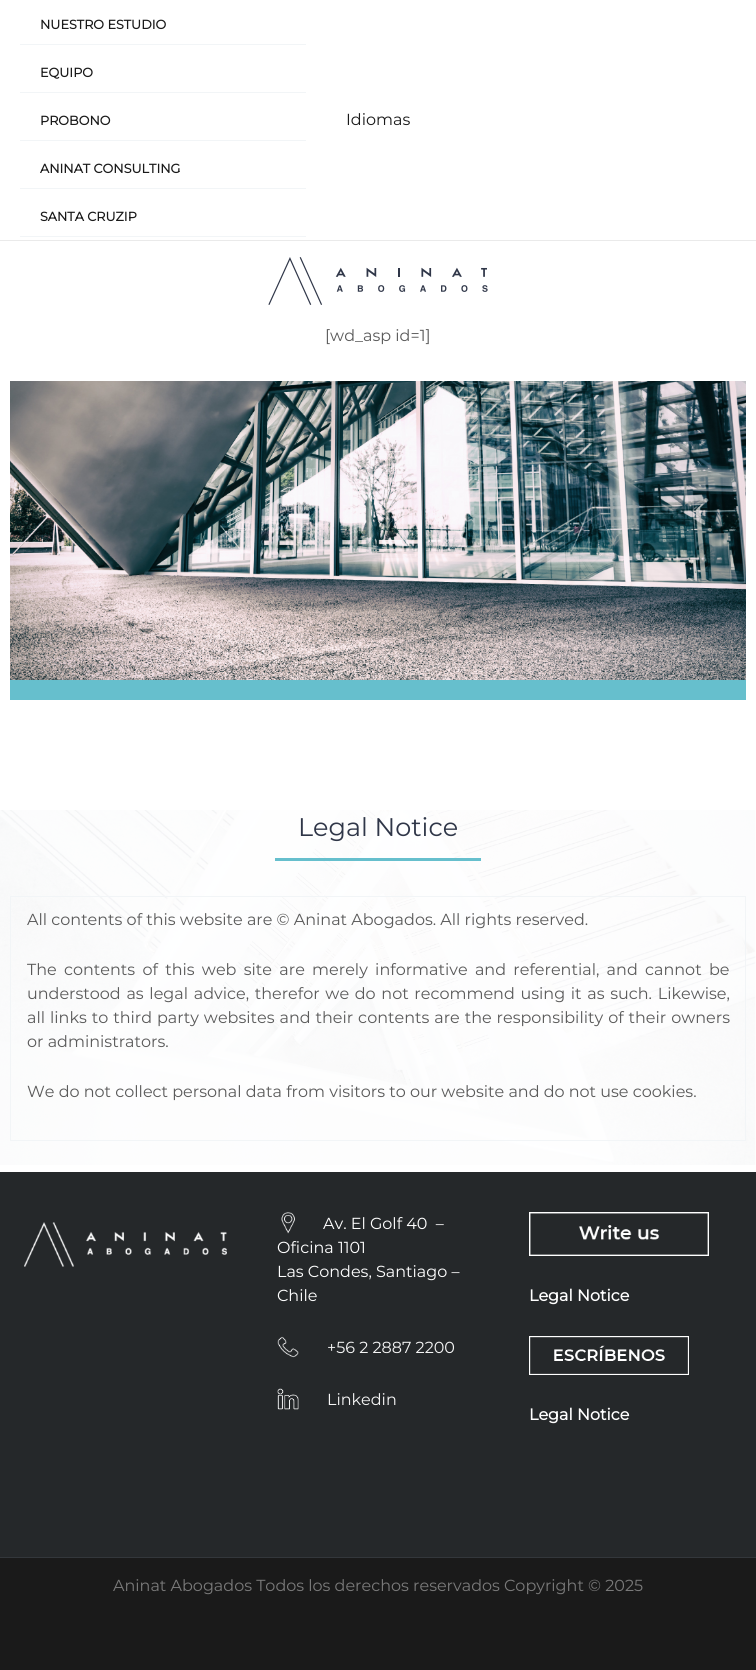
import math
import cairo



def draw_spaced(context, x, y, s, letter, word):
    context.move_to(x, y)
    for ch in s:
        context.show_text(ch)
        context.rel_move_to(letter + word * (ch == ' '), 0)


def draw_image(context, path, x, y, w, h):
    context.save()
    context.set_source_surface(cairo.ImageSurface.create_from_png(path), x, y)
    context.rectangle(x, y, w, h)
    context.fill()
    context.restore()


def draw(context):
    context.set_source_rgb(1, 1, 1)
    context.paint()
    context.set_source_rgb(234 / 255, 234 / 255, 234 / 255)
    context.rectangle(0, 240, 756, 1)
    context.fill()
    context.set_source_rgb(242 / 255, 245 / 255, 247 / 255)
    context.rectangle(20, 44, 286, 1)
    context.fill()
    context.rectangle(20, 92, 286, 1)
    context.fill()
    context.rectangle(20, 140, 286, 1)
    context.fill()
    context.rectangle(20, 188, 286, 1)
    context.fill()
    context.rectangle(20, 236, 286, 1)
    context.fill()
    draw_image(context, "images/1.png", 268, 257, 220, 48)
    context.set_source_rgb(102 / 255, 191 / 255, 205 / 255)
    context.rectangle(10, 680, 736, 20)
    context.fill()
    draw_image(context, "images/2.png", 10, 381, 736, 299)
    draw_image(context, "images/3.png", 0, 810, 756, 355)
    context.rectangle(275, 858, 206, 3)
    context.fill()
    context.set_source_rgb(242 / 255, 245 / 255, 247 / 255)
    context.rectangle(10, 896, 736, 1)
    context.fill()
    context.rectangle(10, 896, 1, 245)
    context.fill()
    context.rectangle(745, 897, 1, 244)
    context.fill()
    context.rectangle(11, 1140, 735, 1)
    context.fill()
    context.set_source_rgb(26 / 255, 26 / 255, 26 / 255)
    context.rectangle(0, 1558, 756, 112)
    context.fill()
    context.set_source_rgb(37 / 255, 40 / 255, 42 / 255)
    context.rectangle(0, 1172, 756, 385)
    context.fill()
    draw_image(context, "images/4.png", 24, 1222, 203, 45)
    draw_image(context, "images/5.png", 281, 1212, 14, 22)
    draw_image(context, "images/6.png", 277, 1336, 22, 22)
    draw_image(context, "images/7.png", 277, 1388, 22, 22)
    draw_image(context, "images/8.png", 529, 1212, 180, 44)
    draw_image(context, "images/9.png", 529, 1336, 160, 39)
    context.set_source_rgb(51 / 255, 55 / 255, 59 / 255)
    context.rectangle(0, 1557, 756, 1)
    context.fill()
    context.select_font_face("Montserrat", cairo.FontSlant.NORMAL, cairo.FontWeight.BOLD)
    context.set_font_size(12.75)
    context.set_source_rgb(26 / 255, 26 / 255, 26 / 255)
    context.move_to(40, 29)
    context.show_text("NUESTRO ESTUDIO")
    context.move_to(40, 77)
    context.show_text("EQUIPO")
    context.move_to(40, 125)
    context.show_text("PROBONO")
    context.move_to(40, 173)
    context.show_text("ANINAT CONSULTING")
    context.move_to(40, 221)
    context.show_text("SANTA CRUZIP")
    context.select_font_face("Montserrat Thin")
    context.set_font_size(16)
    context.move_to(346, 125)
    context.show_text("Idiomas")
    context.set_source_rgb(90 / 255, 90 / 255, 90 / 255)
    context.move_to(325, 341)
    context.show_text("[wd_asp id=1]")
    context.set_font_size(25.5)
    context.set_source_rgb(47 / 255, 54 / 255, 72 / 255)
    context.move_to(298, 836)
    context.show_text("Legal Notice")
    context.set_font_size(16)
    context.set_source_rgb(90 / 255, 90 / 255, 90 / 255)
    context.move_to(27, 925)
    context.show_text("All contents of this website are © Aninat Abogados. All rights reserved.")
    draw_spaced(context, 27, 975, "The contents of this web site are merely informative and referential, and cannot be", 0, 3.1)
    draw_spaced(context, 27, 999, "understood as legal advice, therefor we do not recommend using it as such. Likewise,", 0, 1.5)
    draw_spaced(context, 27, 1023, "all links to third party websites and their contents are the responsibility of their owners", 0, 0.75)
    context.move_to(27, 1047)
    context.show_text("or administrators.")
    context.move_to(27, 1097)
    context.show_text("We do not collect personal data from visitors to our website and do not use cookies.")
    context.set_source_rgb(1, 1, 1)
    context.move_to(323, 1229)
    context.show_text("Av. El Golf 40  –")
    context.move_to(277, 1253)
    context.show_text("Oficina 1101")
    context.move_to(277, 1277)
    context.show_text("Las Condes, Santiago –")
    context.move_to(277, 1301)
    context.show_text("Chile")
    context.set_source_rgb(245 / 255, 245 / 255, 245 / 255)
    context.move_to(327, 1353)
    context.show_text("+56 2 2887 2200")
    context.move_to(327, 1405)
    context.show_text("Linkedin")
    context.select_font_face("Montserrat", cairo.FontSlant.NORMAL, cairo.FontWeight.BOLD)
    context.set_source_rgb(1, 1, 1)
    context.move_to(529, 1301)
    context.show_text("Legal Notice")
    context.move_to(529, 1420)
    context.show_text("Legal Notice")
    context.select_font_face("Montserrat Thin")
    context.set_source_rgb(122 / 255, 122 / 255, 122 / 255)
    context.move_to(113, 1591)
    context.show_text("Aninat Abogados Todos los derechos reservados Copyright © 2025")


surface = cairo.ImageSurface(cairo.Format.RGB24, 756, 1670)
context = cairo.Context(surface)
options = cairo.FontOptions()
options.set_hint_metrics(cairo.HintMetrics.OFF)
options.set_hint_style(cairo.HintStyle.NONE)
context.set_font_options(options)
context.set_miter_limit(4)
draw(context)
surface.write_to_png("out.png")
